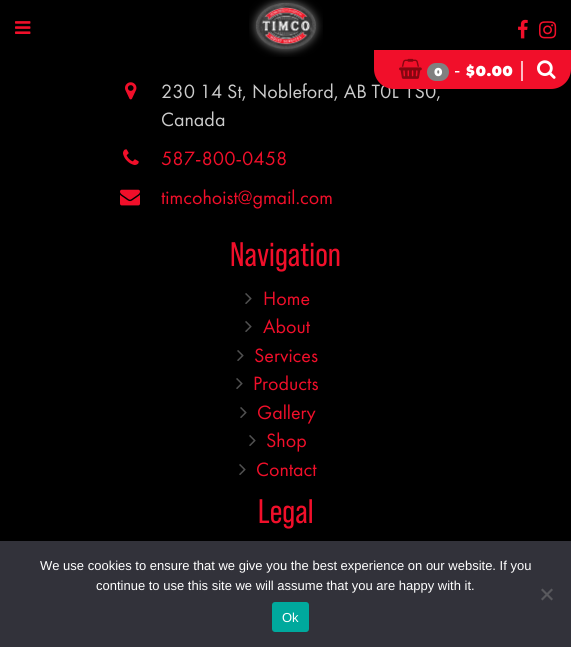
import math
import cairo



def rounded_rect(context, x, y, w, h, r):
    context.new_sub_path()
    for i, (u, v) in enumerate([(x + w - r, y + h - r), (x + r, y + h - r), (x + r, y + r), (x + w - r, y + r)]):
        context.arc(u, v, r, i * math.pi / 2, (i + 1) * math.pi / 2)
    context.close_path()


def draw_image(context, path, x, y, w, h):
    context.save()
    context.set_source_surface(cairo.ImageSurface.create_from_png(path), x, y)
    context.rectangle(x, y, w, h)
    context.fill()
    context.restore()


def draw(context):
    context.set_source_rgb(0, 0, 0)
    context.paint()
    draw_image(context, "images/1.png", 15, 21, 16, 13)
    draw_image(context, "images/2.png", 249, 0, 74, 57)
    draw_image(context, "images/3.png", 518, 19, 10, 20)
    draw_image(context, "images/4.png", 539, 21, 18, 18)
    draw_image(context, "images/7.png", 125, 82, 12, 18)
    draw_image(context, "images/8.png", 123, 149, 16, 16)
    draw_image(context, "images/9.png", 120, 189, 20, 17)
    draw_image(context, "images/10.png", 245, 293, 7, 11)
    draw_image(context, "images/10.png", 245, 321, 7, 11)
    draw_image(context, "images/10.png", 237, 350, 7, 11)
    draw_image(context, "images/10.png", 236, 378, 7, 11)
    draw_image(context, "images/10.png", 240, 407, 7, 11)
    draw_image(context, "images/10.png", 249, 435, 7, 11)
    draw_image(context, "images/10.png", 239, 464, 7, 11)
    context.set_source_rgb(50 / 255, 50 / 255, 58 / 255)
    context.rectangle(0, 541, 571, 106)
    context.fill()
    context.set_source_rgb(89 / 255, 89 / 255, 93 / 255)
    context.new_path()
    context.move_to(551.5, 588.5)
    context.line_to(553, 590)
    context.line_to(542.5, 600.5)
    context.line_to(541, 599)
    context.close_path()
    context.fill()
    context.new_path()
    context.move_to(541, 590)
    context.line_to(542.5, 588.5)
    context.line_to(553, 599)
    context.line_to(551.5, 600.5)
    context.close_path()
    context.fill()
    context.set_source_rgb(0, 169 / 255, 157 / 255)
    rounded_rect(context, 272, 602, 37, 30, 3)
    context.fill()
    context.select_font_face("Futura PT")
    context.set_font_size(20)
    context.set_source_rgb(204 / 255, 204 / 255, 204 / 255)
    context.move_to(161, 98)
    context.show_text("230 14 St, Nobleford, AB T0L 1S0,")
    context.set_source_rgb(241 / 255, 15 / 255, 42 / 255)
    context.new_path()
    context.move_to(374, 50)
    context.line_to(571, 50)
    context.line_to(571, 69)
    context.curve_to(571, 80, 562, 89, 551, 89)
    context.line_to(394, 89)
    context.curve_to(383, 89, 374, 80, 374, 69)
    context.close_path()
    context.fill()
    draw_image(context, "images/6.png", 537, 60, 19, 19)
    context.set_source_rgb(1, 1, 1)
    context.move_to(517, 76)
    context.show_text("|")
    context.select_font_face("Futura PT ExtraBold")
    context.set_font_size(15)
    context.move_to(465, 76)
    context.show_text("$0.00")
    context.select_font_face("Futura PT")
    context.set_font_size(20)
    context.move_to(454, 76)
    context.show_text("-")
    context.set_source_rgb(128 / 255, 128 / 255, 128 / 255)
    rounded_rect(context, 427, 63, 22, 18, 9)
    context.fill()
    context.select_font_face("Futura PT ExtraBold")
    context.set_font_size(12)
    context.set_source_rgb(1, 1, 1)
    context.move_to(434, 76)
    context.show_text("0")
    draw_image(context, "images/5.png", 399, 58, 23, 21)
    context.select_font_face("Futura PT")
    context.set_font_size(20)
    context.set_source_rgb(204 / 255, 204 / 255, 204 / 255)
    context.move_to(161, 126)
    context.show_text("Canada")
    context.set_source_rgb(241 / 255, 15 / 255, 42 / 255)
    context.move_to(161, 165)
    context.show_text("587-800-0458")
    context.move_to(161, 204)
    context.show_text("timcohoist@gmail.com")
    context.select_font_face("Bebas Neue")
    context.set_font_size(34)
    context.move_to(230, 266)
    context.show_text("Navigation")
    context.select_font_face("Futura PT")
    context.set_font_size(20)
    context.move_to(263, 305)
    context.show_text("Home")
    context.move_to(263, 333)
    context.show_text("About")
    context.move_to(254, 362)
    context.show_text("Services")
    context.move_to(253, 390)
    context.show_text("Products")
    context.move_to(257, 419)
    context.show_text("Gallery")
    context.move_to(266, 447)
    context.show_text("Shop")
    context.move_to(256, 476)
    context.show_text("Contact")
    context.select_font_face("Bebas Neue")
    context.set_font_size(34)
    context.move_to(258, 523)
    context.show_text("Legal")
    context.select_font_face("Liberation Sans")
    context.set_font_size(13)
    context.set_source_rgb(1, 1, 1)
    context.move_to(40, 570)
    context.show_text("We use cookies to ensure that we give you the best experience on our website. If you")
    context.move_to(96, 590)
    context.show_text("continue to use this site we will assume that you are happy with it.")
    context.move_to(282, 622)
    context.show_text("Ok")


surface = cairo.ImageSurface(cairo.Format.RGB24, 571, 647)
context = cairo.Context(surface)
options = cairo.FontOptions()
options.set_hint_metrics(cairo.HintMetrics.OFF)
options.set_hint_style(cairo.HintStyle.NONE)
context.set_font_options(options)
context.set_miter_limit(4)
draw(context)
surface.write_to_png("out.png")
